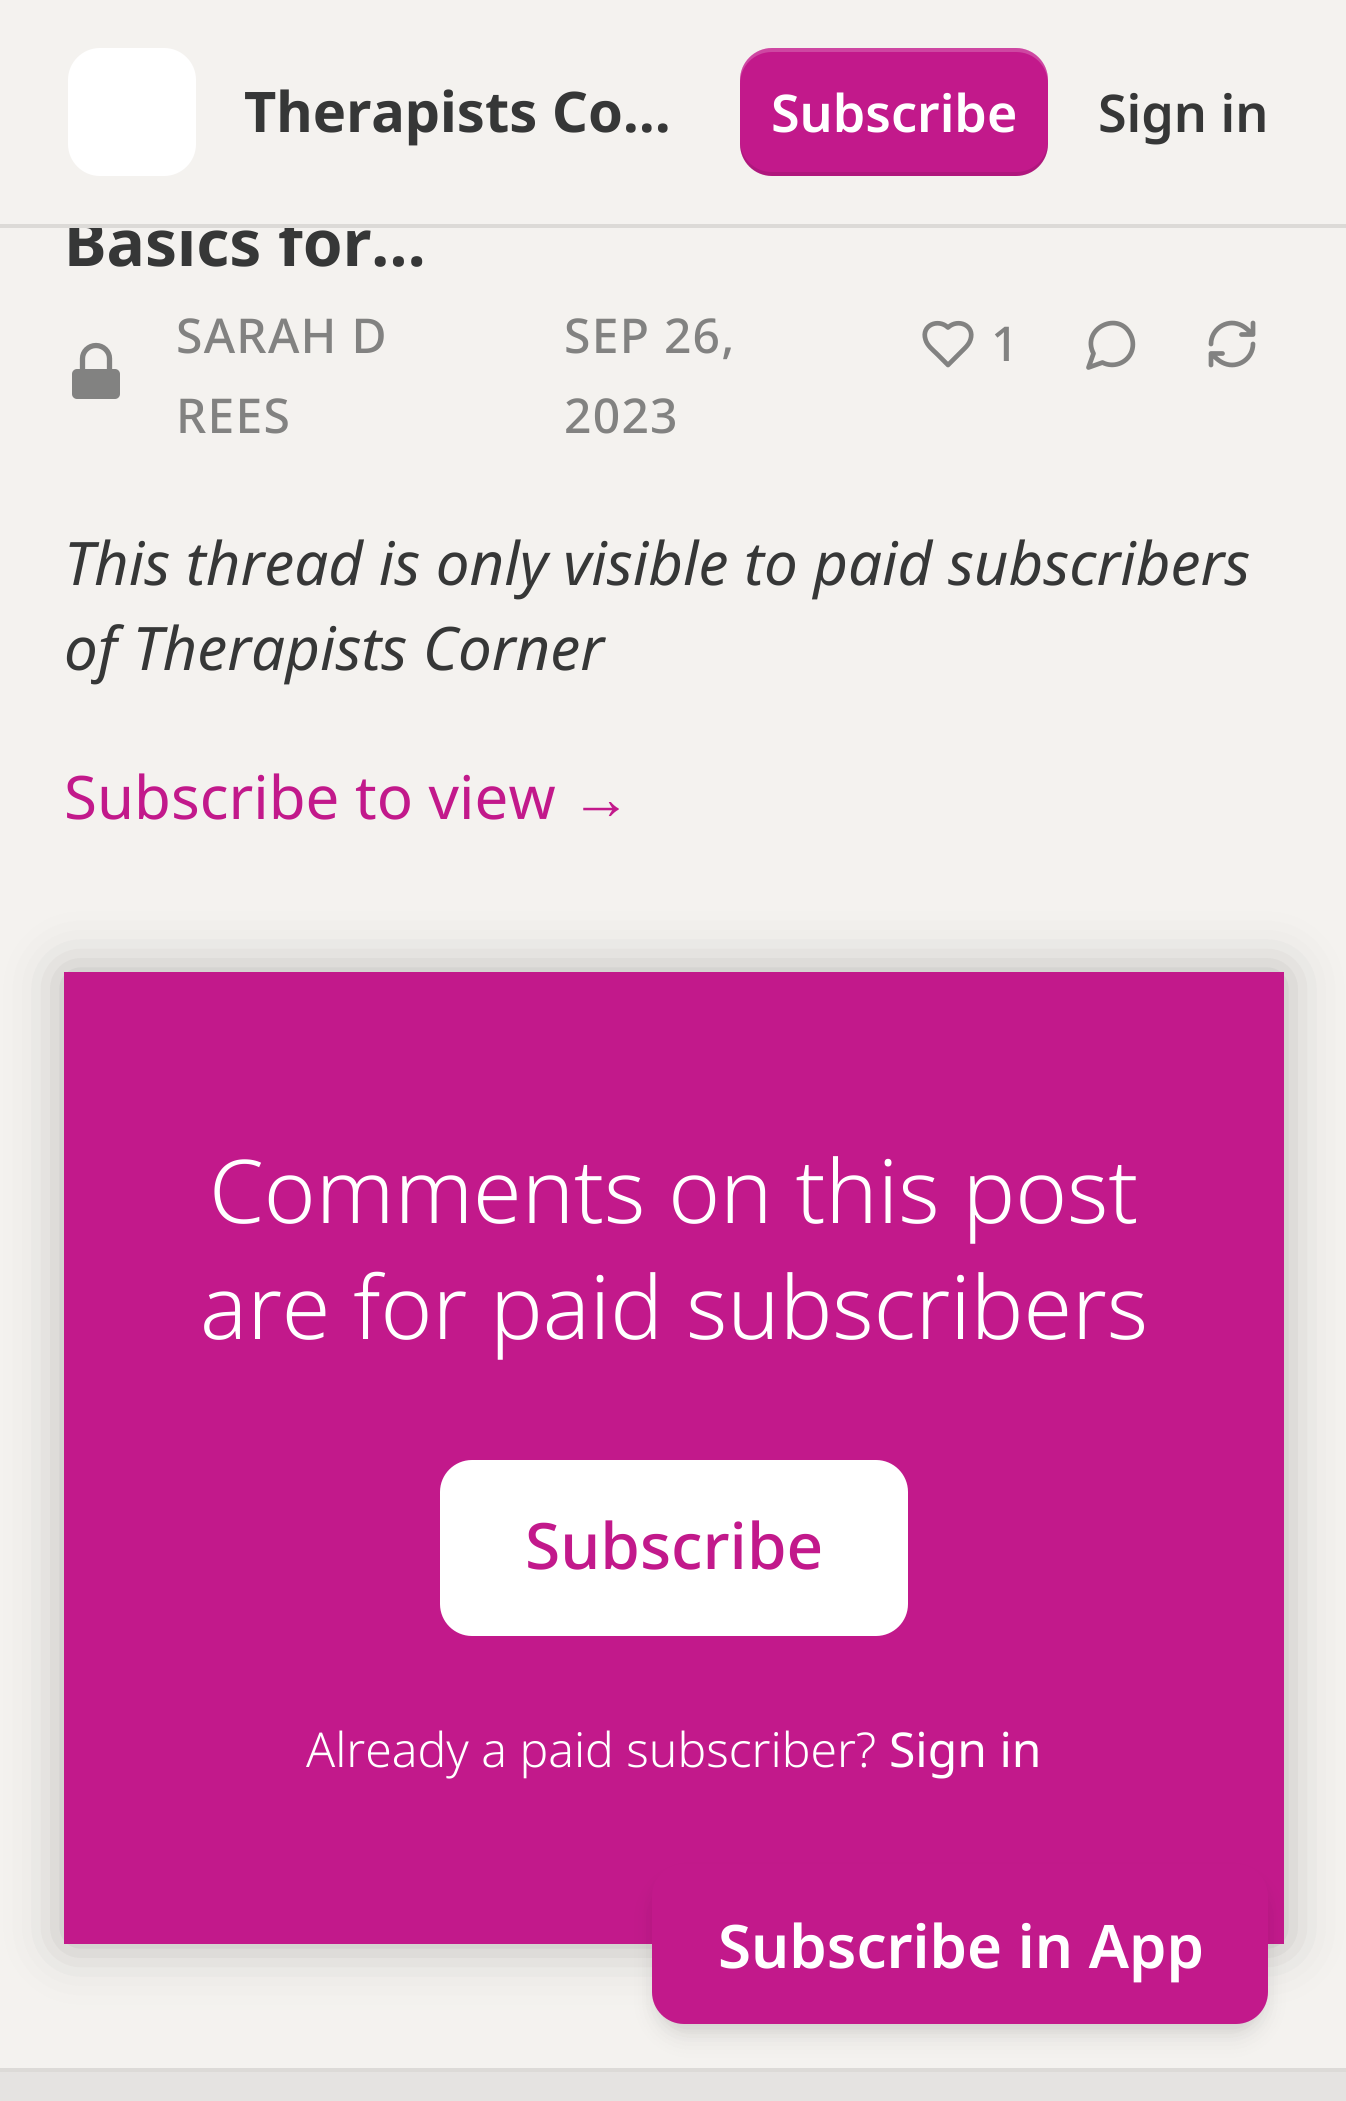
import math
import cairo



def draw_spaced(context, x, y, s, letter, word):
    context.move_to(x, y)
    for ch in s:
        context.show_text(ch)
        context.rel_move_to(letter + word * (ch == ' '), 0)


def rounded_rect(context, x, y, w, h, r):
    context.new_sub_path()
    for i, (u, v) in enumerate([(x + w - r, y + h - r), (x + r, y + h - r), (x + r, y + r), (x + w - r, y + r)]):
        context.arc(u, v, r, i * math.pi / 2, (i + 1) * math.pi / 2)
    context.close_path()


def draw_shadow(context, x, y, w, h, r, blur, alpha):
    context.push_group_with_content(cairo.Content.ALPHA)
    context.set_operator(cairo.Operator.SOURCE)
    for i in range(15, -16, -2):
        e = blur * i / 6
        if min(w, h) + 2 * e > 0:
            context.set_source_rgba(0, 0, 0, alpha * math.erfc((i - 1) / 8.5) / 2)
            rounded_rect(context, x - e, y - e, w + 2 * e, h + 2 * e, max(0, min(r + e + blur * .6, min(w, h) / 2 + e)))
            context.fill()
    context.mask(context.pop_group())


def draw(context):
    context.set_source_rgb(244 / 255, 242 / 255, 239 / 255)
    context.paint()
    context.set_source_rgb(1, 1, 1)
    rounded_rect(context, 68, 48, 128, 128, 32)
    context.fill()
    context.set_source_rgb(194 / 255, 25 / 255, 139 / 255)
    rounded_rect(context, 740, 48, 308, 128, 32)
    context.fill()
    context.set_source_rgba(0, 0, 0, 0.1)
    context.new_path()
    context.move_to(740, 140)
    context.line_to(740, 144)
    context.curve_to(740, 162, 754, 176, 772, 176)
    context.line_to(1016, 176)
    context.curve_to(1034, 176, 1048, 162, 1048, 144)
    context.line_to(1048, 140)
    context.curve_to(1048, 158, 1034, 172, 1016, 172)
    context.line_to(772, 172)
    context.curve_to(754, 172, 740, 158, 740, 140)
    context.close_path()
    context.fill()
    context.set_source_rgba(1, 1, 1, 0.2)
    context.new_path()
    context.move_to(772, 52)
    context.line_to(1016, 52)
    context.curve_to(1034, 52, 1048, 66, 1048, 84)
    context.line_to(1048, 80)
    context.curve_to(1048, 62, 1034, 48, 1016, 48)
    context.line_to(772, 48)
    context.curve_to(754, 48, 740, 62, 740, 80)
    context.line_to(740, 84)
    context.curve_to(740, 66, 754, 52, 772, 52)
    context.close_path()
    context.fill()
    context.set_source_rgb(130 / 255, 130 / 255, 129 / 255)
    rounded_rect(context, 72, 369, 48, 30, 5)
    context.fill()
    context.new_path()
    context.move_to(82.5, 369.5)
    context.line_to(82.5, 358.5)
    context.curve_to(82.5, 351.5, 88.5, 345.5, 96, 345.5)
    context.curve_to(103.5, 345.5, 109.5, 351.5, 109.5, 358.5)
    context.line_to(109.5, 369.5)
    context.set_line_width(5.3)
    context.set_line_cap(cairo.LineCap.ROUND)
    context.set_line_join(cairo.LineJoin.ROUND)
    context.stroke()
    context.new_path()
    context.move_to(964.5, 348.5)
    context.curve_to(967, 346, 969.5, 343, 970.5, 339.5)
    context.curve_to(975, 325.5, 958, 318, 948, 327.5)
    context.curve_to(938, 318, 921, 325.5, 925.5, 339.5)
    context.curve_to(927, 345.5, 933, 350, 937, 354)
    context.line_to(948, 365)
    context.close_path()
    context.set_line_width(4.7)
    context.stroke()
    context.new_path()
    context.move_to(1102.5, 362.5)
    context.curve_to(1113, 368, 1126, 363.5, 1131, 353)
    context.curve_to(1133.5, 347.5, 1133.5, 341, 1131, 335.5)
    context.curve_to(1119.5, 309.5, 1080.5, 328.5, 1093.5, 353.5)
    context.line_to(1088.5, 367.5)
    context.close_path()
    context.stroke()
    context.new_path()
    context.move_to(1253, 323)
    context.line_to(1253, 334.5)
    context.move_to(1253, 334.5)
    context.line_to(1241.5, 334.5)
    context.move_to(1253, 334.5)
    context.curve_to(1249, 331, 1245, 326.5, 1239.5, 324.5)
    context.curve_to(1226, 319, 1211, 329.5, 1211, 344)
    context.move_to(1211, 365)
    context.line_to(1211, 353.5)
    context.move_to(1211, 353.5)
    context.line_to(1222.5, 353.5)
    context.move_to(1211, 353.5)
    context.curve_to(1215, 357, 1219, 361.5, 1224.5, 363.5)
    context.curve_to(1238, 369, 1253, 358.5, 1253, 344)
    context.stroke()
    context.set_source_rgb(194 / 255, 25 / 255, 139 / 255)
    context.rectangle(64, 972, 1220, 972)
    context.fill()
    context.set_source_rgb(1, 1, 1)
    rounded_rect(context, 442, 1462, 464, 172, 30)
    context.fill_preserve()
    context.set_line_width(4)
    context.set_line_cap(cairo.LineCap.BUTT)
    context.set_line_join(cairo.LineJoin.MITER)
    context.stroke()
    context.save()
    context.set_fill_rule(cairo.FillRule.EVEN_ODD)
    context.new_path()
    context.move_to(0, 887)
    context.line_to(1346, 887)
    context.line_to(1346, 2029)
    context.line_to(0, 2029)
    context.close_path()
    context.move_to(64, 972)
    context.line_to(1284, 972)
    context.line_to(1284, 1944)
    context.line_to(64, 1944)
    context.close_path()
    context.clip()
    context.set_source_rgb(0, 0, 0)
    draw_shadow(context, 64, 972, 1220, 972, 0, 28, 0.25)
    context.restore()
    context.set_source_rgb(0, 0, 0)
    draw_shadow(context, 656, 1876, 608, 152, 28, 8, 0.06)
    draw_shadow(context, 656, 1884, 608, 152, 28, 12, 0.1)
    context.set_source_rgb(194 / 255, 25 / 255, 139 / 255)
    rounded_rect(context, 652, 1864, 616, 160, 32)
    context.fill()
    context.set_source_rgb(229 / 255, 227 / 255, 225 / 255)
    context.rectangle(0, 2072, 1346, 29)
    context.fill()
    context.set_source_rgb(220 / 255, 218 / 255, 215 / 255)
    context.rectangle(0, 2068, 1346, 4)
    context.fill()
    context.select_font_face("Noto Sans", cairo.FontSlant.NORMAL, cairo.FontWeight.BOLD)
    context.set_font_size(56)
    context.set_source_rgb(54 / 255, 55 / 255, 55 / 255)
    context.move_to(244, 132)
    context.show_text("Therapists Co…")
    context.select_font_face("Noto Sans SemiBold")
    context.set_font_size(52)
    context.set_source_rgb(1, 1, 1)
    context.move_to(771, 132)
    context.show_text("Subscribe")
    context.set_source_rgb(54 / 255, 55 / 255, 55 / 255)
    context.move_to(1098, 132)
    context.show_text("Sign in")
    context.select_font_face("Noto Sans", cairo.FontSlant.NORMAL, cairo.FontWeight.BOLD)
    context.set_font_size(64)
    context.move_to(64, 266)
    context.show_text("Basics for…")
    context.set_source_rgb(220 / 255, 218 / 255, 215 / 255)
    context.rectangle(0, 224, 1346, 4)
    context.fill()
    context.set_source_rgb(244 / 255, 242 / 255, 239 / 255)
    context.rectangle(69, 217, 237, 7)
    context.fill()
    context.select_font_face("Noto Sans Medium")
    context.set_font_size(48)
    context.set_source_rgb(130 / 255, 130 / 255, 129 / 255)
    draw_spaced(context, 176, 353, "SARAH D", 1.25, 0)
    draw_spaced(context, 176, 433, "REES", 1.25, 0)
    draw_spaced(context, 564, 353, "SEP 26,", 1.25, 0)
    draw_spaced(context, 564, 433, "2023", 1.25, 0)
    draw_spaced(context, 991, 361, "1", 1.25, 0)
    context.select_font_face("Noto Sans", cairo.FontSlant.ITALIC)
    context.set_font_size(60)
    context.set_source_rgb(54 / 255, 55 / 255, 55 / 255)
    context.move_to(64, 585)
    context.show_text("This thread is only visible to paid subscribers")
    context.move_to(64, 670)
    context.show_text("of Therapists Corner")
    context.select_font_face("Noto Sans")
    context.set_source_rgb(194 / 255, 25 / 255, 139 / 255)
    context.move_to(64, 819)
    context.show_text("Subscribe to view")
    context.select_font_face("Liberation Sans")
    context.move_to(571, 819)
    context.show_text("→")
    context.select_font_face("Noto Sans Light")
    context.set_font_size(88)
    context.set_source_rgb(1, 1, 1)
    context.move_to(209, 1223)
    context.show_text("Comments on this post")
    context.move_to(200, 1339)
    context.show_text("are for paid subscribers")
    context.select_font_face("Noto Sans Medium")
    context.set_font_size(64)
    context.set_source_rgb(194 / 255, 25 / 255, 139 / 255)
    context.move_to(525, 1569)
    context.show_text("Subscribe")
    context.select_font_face("Noto Sans Light")
    context.set_font_size(48)
    context.set_source_rgb(1, 1, 1)
    context.move_to(306, 1767)
    context.show_text("Already a paid subscriber?")
    context.select_font_face("Noto Sans")
    context.move_to(889, 1767)
    context.show_text("Sign in")
    context.select_font_face("Noto Sans SemiBold")
    context.set_font_size(60)
    context.move_to(718, 1968)
    context.show_text("Subscribe in App")


surface = cairo.ImageSurface(cairo.Format.RGB24, 1346, 2101)
context = cairo.Context(surface)
options = cairo.FontOptions()
options.set_hint_metrics(cairo.HintMetrics.OFF)
options.set_hint_style(cairo.HintStyle.NONE)
context.set_font_options(options)
context.set_miter_limit(4)
draw(context)
surface.write_to_png("out.png")
